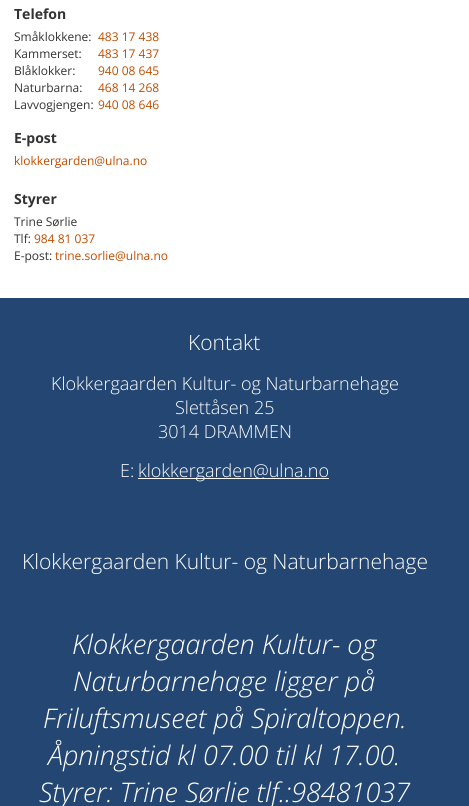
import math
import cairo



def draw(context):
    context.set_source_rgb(1, 1, 1)
    context.paint()
    context.set_source_rgb(35 / 255, 70 / 255, 114 / 255)
    context.rectangle(0, 298, 469, 508)
    context.fill()
    context.set_source_rgb(1, 1, 1)
    context.rectangle(138, 478, 191, 1)
    context.fill()
    context.select_font_face("Open Sans", cairo.FontSlant.NORMAL, cairo.FontWeight.BOLD)
    context.set_font_size(14)
    context.set_source_rgb(51 / 255, 51 / 255, 51 / 255)
    context.move_to(14, 19)
    context.show_text("Telefon")
    context.select_font_face("Open Sans")
    context.set_font_size(12)
    context.move_to(14, 41)
    context.show_text("Småklokkene:")
    context.set_source_rgb(191 / 255, 76 / 255, 0)
    context.move_to(98, 41)
    context.show_text("483 17 438")
    context.set_source_rgb(51 / 255, 51 / 255, 51 / 255)
    context.move_to(14, 58)
    context.show_text("Kammerset:")
    context.set_source_rgb(191 / 255, 76 / 255, 0)
    context.move_to(98, 58)
    context.show_text("483 17 437")
    context.set_source_rgb(51 / 255, 51 / 255, 51 / 255)
    context.move_to(14, 75)
    context.show_text("Blåklokker:")
    context.set_source_rgb(191 / 255, 76 / 255, 0)
    context.move_to(98, 75)
    context.show_text("940 08 645")
    context.set_source_rgb(51 / 255, 51 / 255, 51 / 255)
    context.move_to(14, 92)
    context.show_text("Naturbarna:")
    context.set_source_rgb(191 / 255, 76 / 255, 0)
    context.move_to(98, 92)
    context.show_text("468 14 268")
    context.set_source_rgb(51 / 255, 51 / 255, 51 / 255)
    context.move_to(14, 109)
    context.show_text("Lavvogjengen:")
    context.set_source_rgb(191 / 255, 76 / 255, 0)
    context.move_to(98, 109)
    context.show_text("940 08 646")
    context.select_font_face("Open Sans", cairo.FontSlant.NORMAL, cairo.FontWeight.BOLD)
    context.set_font_size(14)
    context.set_source_rgb(51 / 255, 51 / 255, 51 / 255)
    context.move_to(14, 143)
    context.show_text("E-post")
    context.select_font_face("Open Sans")
    context.set_font_size(12)
    context.set_source_rgb(191 / 255, 76 / 255, 0)
    context.move_to(14, 165)
    context.show_text("klokkergarden@ulna.no")
    context.select_font_face("Open Sans", cairo.FontSlant.NORMAL, cairo.FontWeight.BOLD)
    context.set_font_size(14)
    context.set_source_rgb(51 / 255, 51 / 255, 51 / 255)
    context.move_to(14, 204)
    context.show_text("Styrer")
    context.select_font_face("Open Sans")
    context.set_font_size(12)
    context.move_to(14, 226)
    context.show_text("Trine Sørlie")
    context.move_to(14, 243)
    context.show_text("Tlf:")
    context.set_source_rgb(191 / 255, 76 / 255, 0)
    context.move_to(34, 243)
    context.show_text("984 81 037")
    context.set_source_rgb(51 / 255, 51 / 255, 51 / 255)
    context.move_to(14, 260)
    context.show_text("E-post:")
    context.set_source_rgb(191 / 255, 76 / 255, 0)
    context.move_to(55, 260)
    context.show_text("trine.sorlie@ulna.no")
    context.select_font_face("Open Sans Light")
    context.set_font_size(21)
    context.set_source_rgb(1, 1, 1)
    context.move_to(188, 350)
    context.show_text("Kontakt")
    context.set_font_size(18)
    context.move_to(51, 390)
    context.show_text("Klokkergaarden Kultur- og Naturbarnehage")
    context.move_to(175, 414)
    context.show_text("Slettåsen 25")
    context.move_to(158, 438)
    context.show_text("3014 DRAMMEN")
    context.move_to(120, 477)
    context.show_text("E:")
    context.move_to(138, 477)
    context.show_text("klokkergarden@ulna.no")
    context.set_font_size(21)
    context.move_to(22, 569)
    context.show_text("Klokkergaarden Kultur- og Naturbarnehage")
    context.select_font_face("Open Sans Light", cairo.FontSlant.ITALIC)
    context.set_font_size(27)
    context.move_to(72, 654)
    context.show_text("Klokkergaarden Kultur- og")
    context.move_to(73, 691)
    context.show_text("Naturbarnehage ligger på")
    context.move_to(43, 728)
    context.show_text("Friluftsmuseet på Spiraltoppen.")
    context.move_to(48, 765)
    context.show_text("Åpningstid kl 07.00 til kl 17.00.")
    context.move_to(39, 802)
    context.show_text("Styrer: Trine Sørlie tlf.:98481037")


surface = cairo.ImageSurface(cairo.Format.RGB24, 469, 806)
context = cairo.Context(surface)
options = cairo.FontOptions()
options.set_hint_metrics(cairo.HintMetrics.OFF)
options.set_hint_style(cairo.HintStyle.NONE)
context.set_font_options(options)
context.set_miter_limit(4)
draw(context)
surface.write_to_png("out.png")
